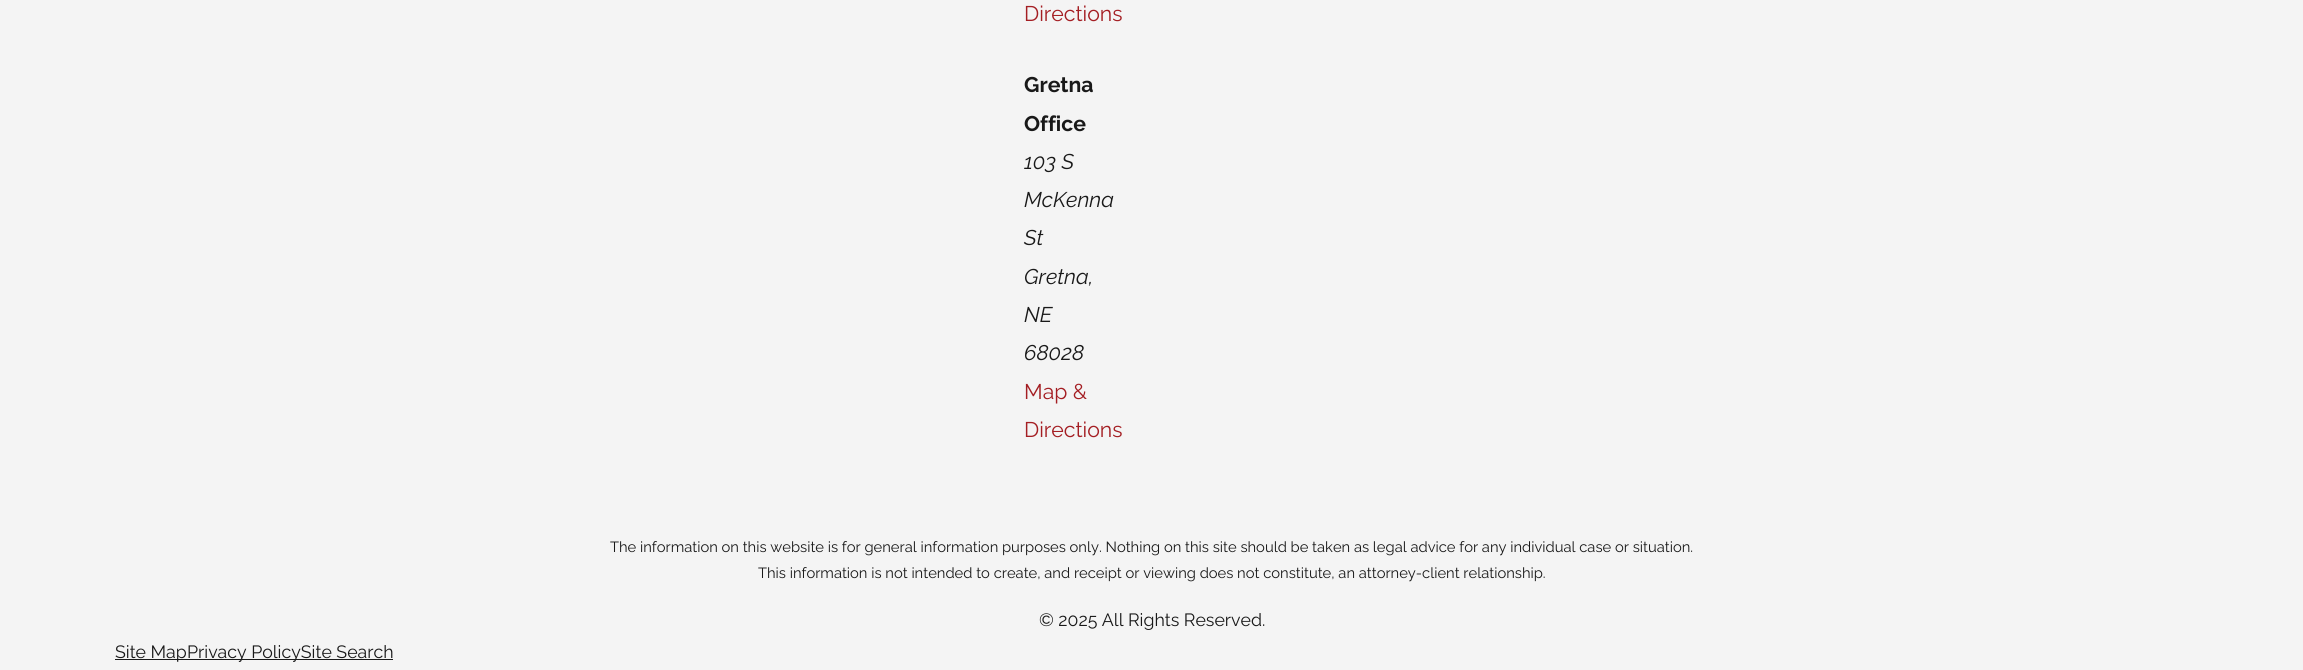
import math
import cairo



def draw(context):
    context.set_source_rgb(244 / 255, 244 / 255, 244 / 255)
    context.paint()
    context.set_source_rgb(25 / 255, 25 / 255, 25 / 255)
    context.rectangle(115, 659, 71, 1)
    context.fill()
    context.rectangle(186, 659, 207, 1)
    context.fill()
    context.select_font_face("Raleway")
    context.set_font_size(21.25)
    context.set_source_rgb(164 / 255, 30 / 255, 35 / 255)
    context.move_to(1024, 21)
    context.show_text("Directions")
    context.select_font_face("Raleway", cairo.FontSlant.NORMAL, cairo.FontWeight.BOLD)
    context.set_source_rgb(25 / 255, 25 / 255, 25 / 255)
    context.move_to(1024, 92)
    context.show_text("Gretna")
    context.move_to(1024, 131)
    context.show_text("Office")
    context.select_font_face("Raleway", cairo.FontSlant.ITALIC)
    context.move_to(1024, 169)
    context.show_text("103 S")
    context.move_to(1024, 207)
    context.show_text("McKenna")
    context.move_to(1024, 245)
    context.show_text("St")
    context.move_to(1024, 284)
    context.show_text("Gretna,")
    context.move_to(1024, 322)
    context.show_text("NE")
    context.move_to(1024, 360)
    context.show_text("68028")
    context.select_font_face("Raleway")
    context.set_source_rgb(164 / 255, 30 / 255, 35 / 255)
    context.move_to(1024, 399)
    context.show_text("Map &")
    context.move_to(1024, 437)
    context.show_text("Directions")
    context.set_font_size(14.75)
    context.set_source_rgb(25 / 255, 25 / 255, 25 / 255)
    context.move_to(610, 552)
    context.show_text("The information on this website is for general information purposes only. Nothing on this site should be taken as legal advice for any individual case or situation.")
    context.move_to(758, 578)
    context.show_text("This information is not intended to create, and receipt or viewing does not constitute, an attorney-client relationship.")
    context.set_font_size(17.75)
    context.move_to(1039, 626)
    context.show_text("© 2025 All Rights Reserved.")
    context.move_to(115, 658)
    context.show_text("Site Map")
    context.move_to(187, 658)
    context.show_text("Privacy PolicySite Search")


surface = cairo.ImageSurface(cairo.Format.RGB24, 2303, 670)
context = cairo.Context(surface)
options = cairo.FontOptions()
options.set_hint_metrics(cairo.HintMetrics.OFF)
options.set_hint_style(cairo.HintStyle.NONE)
context.set_font_options(options)
context.set_miter_limit(4)
draw(context)
surface.write_to_png("out.png")
